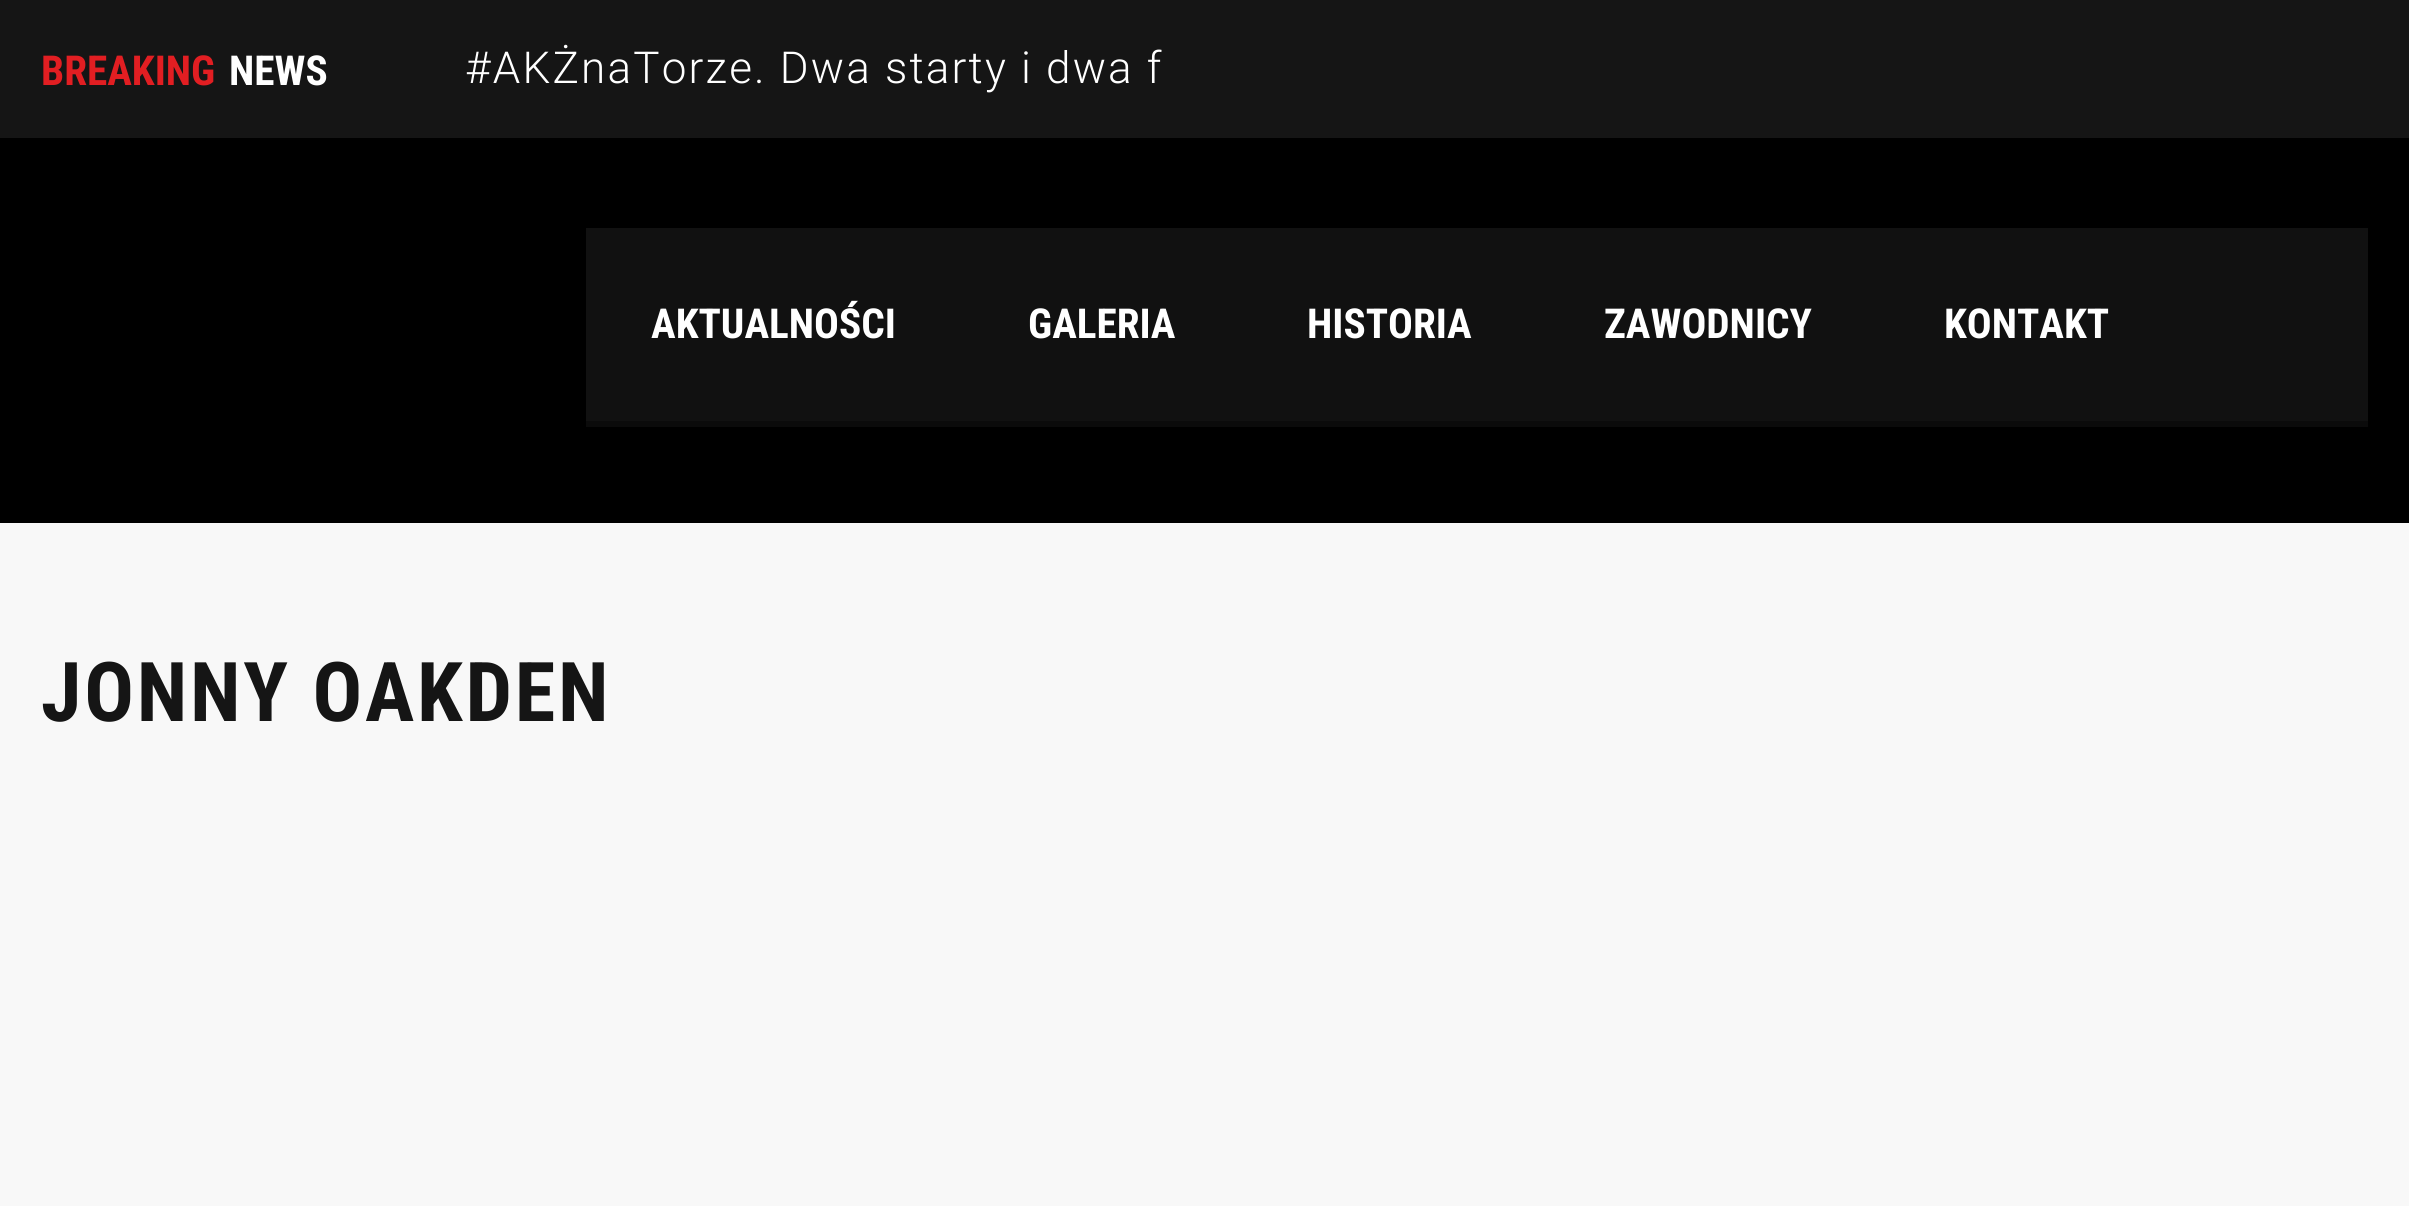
import math
import cairo



def draw_spaced(context, x, y, s, letter, word):
    context.move_to(x, y)
    for ch in s:
        context.show_text(ch)
        context.rel_move_to(letter + word * (ch == ' '), 0)


def draw(context):
    context.set_source_rgb(248 / 255, 248 / 255, 248 / 255)
    context.paint()
    context.set_source_rgb(21 / 255, 21 / 255, 21 / 255)
    context.rectangle(0, 0, 2409, 138)
    context.fill()
    context.set_source_rgb(0, 0, 0)
    context.rectangle(0, 138, 2409, 385)
    context.fill()
    context.set_source_rgb(17 / 255, 17 / 255, 17 / 255)
    context.rectangle(586, 228, 1782, 193)
    context.fill()
    context.set_source_rgb(11 / 255, 11 / 255, 11 / 255)
    context.rectangle(586, 421, 1782, 6)
    context.fill()
    context.select_font_face("Roboto Condensed", cairo.FontSlant.NORMAL, cairo.FontWeight.BOLD)
    context.set_font_size(41.25)
    context.set_source_rgb(226 / 255, 30 / 255, 34 / 255)
    context.move_to(41, 85)
    context.show_text("BREAKING")
    context.set_source_rgb(1, 1, 1)
    context.move_to(229, 85)
    context.show_text("NEWS")
    context.select_font_face("Roboto Light")
    context.set_font_size(44)
    draw_spaced(context, 465, 83, "#AKŻnaTorze. Dwa starty i dwa f", 2.2, 0)
    context.select_font_face("Roboto Condensed", cairo.FontSlant.NORMAL, cairo.FontWeight.BOLD)
    context.set_font_size(41.25)
    context.move_to(651, 338)
    context.show_text("AKTUALNOŚCI")
    context.move_to(1028, 338)
    context.show_text("GALERIA")
    context.move_to(1307, 338)
    context.show_text("HISTORIA")
    context.move_to(1604, 338)
    context.show_text("ZAWODNICY")
    context.move_to(1944, 338)
    context.show_text("KONTAKT")
    context.set_font_size(82.5)
    context.set_source_rgb(21 / 255, 21 / 255, 21 / 255)
    draw_spaced(context, 41, 721, "JONNY OAKDEN", 2.75, 0)


surface = cairo.ImageSurface(cairo.Format.RGB24, 2409, 1206)
context = cairo.Context(surface)
options = cairo.FontOptions()
options.set_hint_metrics(cairo.HintMetrics.OFF)
options.set_hint_style(cairo.HintStyle.NONE)
context.set_font_options(options)
context.set_miter_limit(4)
draw(context)
surface.write_to_png("out.png")
